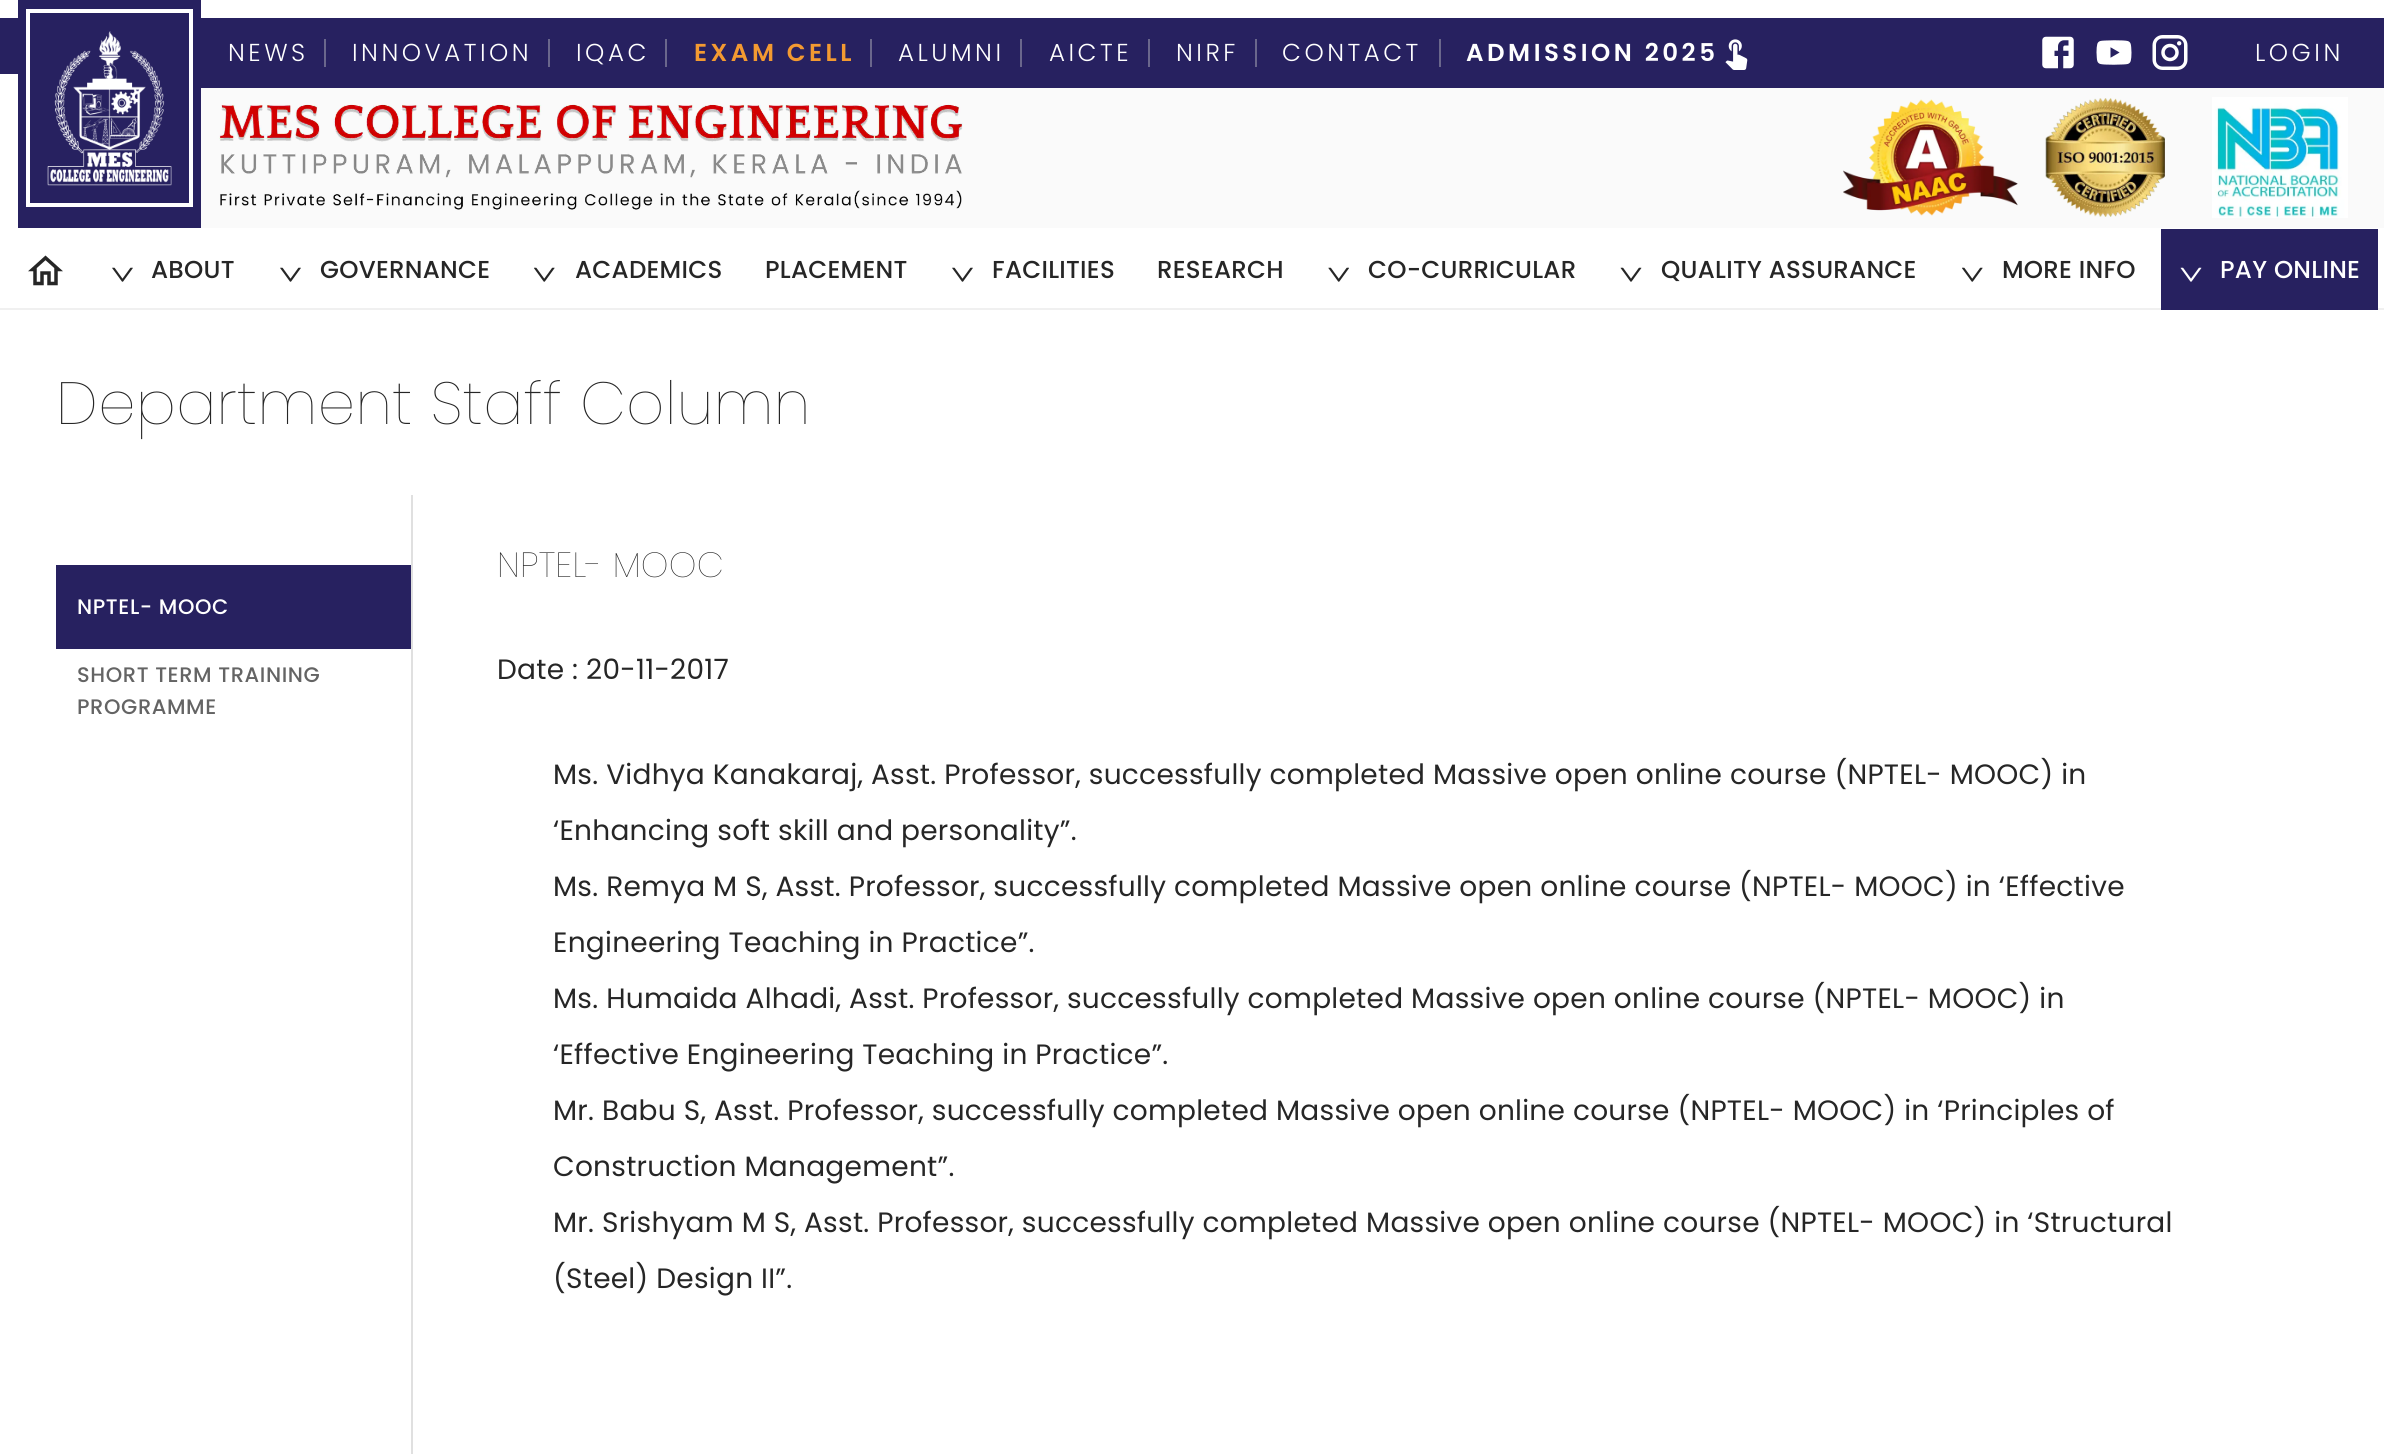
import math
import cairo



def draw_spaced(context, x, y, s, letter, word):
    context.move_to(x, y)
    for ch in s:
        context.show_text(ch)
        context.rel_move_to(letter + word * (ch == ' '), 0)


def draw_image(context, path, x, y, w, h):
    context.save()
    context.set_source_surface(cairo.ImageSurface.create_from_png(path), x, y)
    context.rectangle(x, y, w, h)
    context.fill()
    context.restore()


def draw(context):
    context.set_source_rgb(1, 1, 1)
    context.paint()
    context.set_source_rgb(39 / 255, 33 / 255, 96 / 255)
    context.rectangle(18, 0, 183, 228)
    context.fill()
    context.rectangle(0, 18, 18, 56)
    context.fill()
    context.rectangle(28, 11, 163, 194)
    context.set_source_rgb(1, 1, 1)
    context.set_line_width(4)
    context.stroke()
    draw_image(context, "images/1.png", 47, 31, 125, 155)
    context.set_source_rgb(39 / 255, 33 / 255, 96 / 255)
    context.rectangle(201, 18, 2183, 70)
    context.fill()
    context.set_source_rgb(106 / 255, 103 / 255, 140 / 255)
    context.rectangle(324, 39, 2, 28)
    context.fill()
    context.rectangle(548, 39, 2, 28)
    context.fill()
    context.rectangle(665, 39, 2, 28)
    context.fill()
    context.rectangle(870, 39, 2, 28)
    context.fill()
    context.rectangle(1020, 39, 2, 28)
    context.fill()
    context.rectangle(1148, 39, 2, 28)
    context.fill()
    context.rectangle(1255, 39, 2, 28)
    context.fill()
    context.rectangle(1439, 39, 2, 28)
    context.fill()
    draw_image(context, "images/2.png", 1725, 39, 23, 31)
    draw_image(context, "images/3.png", 2042, 36, 32, 33)
    draw_image(context, "images/4.png", 2096, 40, 36, 25)
    draw_image(context, "images/5.png", 2152, 35, 36, 35)
    context.set_source_rgb(250 / 255, 250 / 255, 250 / 255)
    context.rectangle(201, 88, 2183, 140)
    context.fill()
    draw_image(context, "images/6.png", 219, 104, 744, 106)
    draw_image(context, "images/7.png", 1843, 99, 175, 117)
    draw_image(context, "images/8.png", 2045, 98, 120, 119)
    draw_image(context, "images/9.png", 2212, 97, 136, 121)
    context.set_source_rgb(240 / 255, 240 / 255, 240 / 255)
    context.rectangle(0, 308, 2384, 2)
    context.fill()
    draw_image(context, "images/10.png", 28, 255, 35, 31)
    draw_image(context, "images/11.png", 112, 267, 21, 15)
    draw_image(context, "images/11.png", 280, 267, 21, 15)
    draw_image(context, "images/12.png", 534, 267, 21, 15)
    draw_image(context, "images/11.png", 952, 267, 21, 15)
    draw_image(context, "images/13.png", 1328, 267, 21, 15)
    draw_image(context, "images/14.png", 1620, 267, 22, 15)
    draw_image(context, "images/12.png", 1962, 267, 21, 15)
    context.set_source_rgb(39 / 255, 33 / 255, 96 / 255)
    context.rectangle(2161, 229, 217, 81)
    context.fill()
    draw_image(context, "images/15.png", 2180, 267, 22, 15)
    context.set_source_rgb(224 / 255, 224 / 255, 224 / 255)
    context.rectangle(411, 495, 2, 959)
    context.fill()
    context.set_source_rgb(39 / 255, 33 / 255, 96 / 255)
    context.rectangle(56, 565, 355, 84)
    context.fill()
    context.select_font_face("Poppins Light")
    context.set_font_size(24.5)
    context.set_source_rgb(1, 1, 1)
    draw_spaced(context, 228, 61, "NEWS", 3.5, 0)
    draw_spaced(context, 352, 61, "INNOVATION", 3.5, 0)
    draw_spaced(context, 576, 61, "IQAC", 3.5, 0)
    context.select_font_face("Poppins SemiBold")
    context.set_source_rgb(243 / 255, 154 / 255, 49 / 255)
    draw_spaced(context, 694, 61, "EXAM CELL", 3.5, 0)
    context.select_font_face("Poppins Light")
    context.set_source_rgb(1, 1, 1)
    draw_spaced(context, 898, 61, "ALUMNI", 3.5, 0)
    draw_spaced(context, 1049, 61, "AICTE", 3.5, 0)
    draw_spaced(context, 1176, 61, "NIRF", 3.5, 0)
    draw_spaced(context, 1282, 61, "CONTACT", 3.5, 0)
    context.select_font_face("Poppins SemiBold")
    draw_spaced(context, 1466, 61, "ADMISSION 2025", 3.5, 0)
    context.select_font_face("Poppins Light")
    draw_spaced(context, 2255, 61, "LOGIN", 3.5, 0)
    context.select_font_face("Poppins Medium")
    context.set_source_rgb(38 / 255, 38 / 255, 38 / 255)
    draw_spaced(context, 151, 278, "ABOUT", 0.26, 0)
    draw_spaced(context, 320, 278, "GOVERNANCE", 0.26, 0)
    draw_spaced(context, 575, 278, "ACADEMICS", 0.26, 0)
    draw_spaced(context, 765, 278, "PLACEMENT", 0.26, 0)
    draw_spaced(context, 992, 278, "FACILITIES", 0.26, 0)
    draw_spaced(context, 1157, 278, "RESEARCH", 0.26, 0)
    draw_spaced(context, 1368, 278, "CO-CURRICULAR", 0.26, 0)
    draw_spaced(context, 1661, 278, "QUALITY ASSURANCE", 0.26, 0)
    draw_spaced(context, 2002, 278, "MORE INFO", 0.26, 0)
    context.set_source_rgb(1, 1, 1)
    draw_spaced(context, 2220, 278, "PAY ONLINE", 0.26, 0)
    context.select_font_face("Poppins ExtraLight")
    context.set_font_size(59.5)
    context.set_source_rgb(38 / 255, 38 / 255, 38 / 255)
    draw_spaced(context, 56, 424, "Department Staff Column", 0.4, 0)
    context.select_font_face("Poppins Medium")
    context.set_font_size(21)
    context.set_source_rgb(1, 1, 1)
    draw_spaced(context, 77, 614, "NPTEL- MOOC", 0.6, 0)
    context.set_source_rgb(100 / 255, 100 / 255, 100 / 255)
    draw_spaced(context, 77, 682, "SHORT TERM TRAINING", 0.6, 0)
    draw_spaced(context, 77, 714, "PROGRAMME", 0.6, 0)
    context.select_font_face("Poppins ExtraLight")
    context.set_font_size(35)
    context.set_source_rgb(38 / 255, 38 / 255, 38 / 255)
    draw_spaced(context, 497, 577, "NPTEL- MOOC", 0.26, 0)
    context.select_font_face("Poppins")
    context.set_font_size(28)
    draw_spaced(context, 497, 679, "Date : 20-11-2017", 0.26, 0)
    draw_spaced(context, 553, 784, "Ms. Vidhya Kanakaraj, Asst. Professor, successfully completed Massive open online course (NPTEL- MOOC) in", 0.26, 0)
    draw_spaced(context, 553, 840, "‘Enhancing soft skill and personality”.", 0.26, 0)
    draw_spaced(context, 553, 896, "Ms. Remya M S, Asst. Professor, successfully completed Massive open online course (NPTEL- MOOC) in ‘Effective", 0.26, 0)
    draw_spaced(context, 553, 952, "Engineering Teaching in Practice”.", 0.26, 0)
    draw_spaced(context, 553, 1008, "Ms. Humaida Alhadi, Asst. Professor, successfully completed Massive open online course (NPTEL- MOOC) in", 0.26, 0)
    draw_spaced(context, 553, 1064, "‘Effective Engineering Teaching in Practice”.", 0.26, 0)
    draw_spaced(context, 553, 1120, "Mr. Babu S, Asst. Professor, successfully completed Massive open online course (NPTEL- MOOC) in ‘Principles of", 0.26, 0)
    draw_spaced(context, 553, 1176, "Construction Management”.", 0.26, 0)
    draw_spaced(context, 553, 1232, "Mr. Srishyam M S, Asst. Professor, successfully completed Massive open online course (NPTEL- MOOC) in ‘Structural", 0.26, 0)
    draw_spaced(context, 553, 1288, "(Steel) Design II”.", 0.26, 0)


surface = cairo.ImageSurface(cairo.Format.RGB24, 2384, 1454)
context = cairo.Context(surface)
options = cairo.FontOptions()
options.set_hint_metrics(cairo.HintMetrics.OFF)
options.set_hint_style(cairo.HintStyle.NONE)
context.set_font_options(options)
context.set_miter_limit(4)
draw(context)
surface.write_to_png("out.png")
